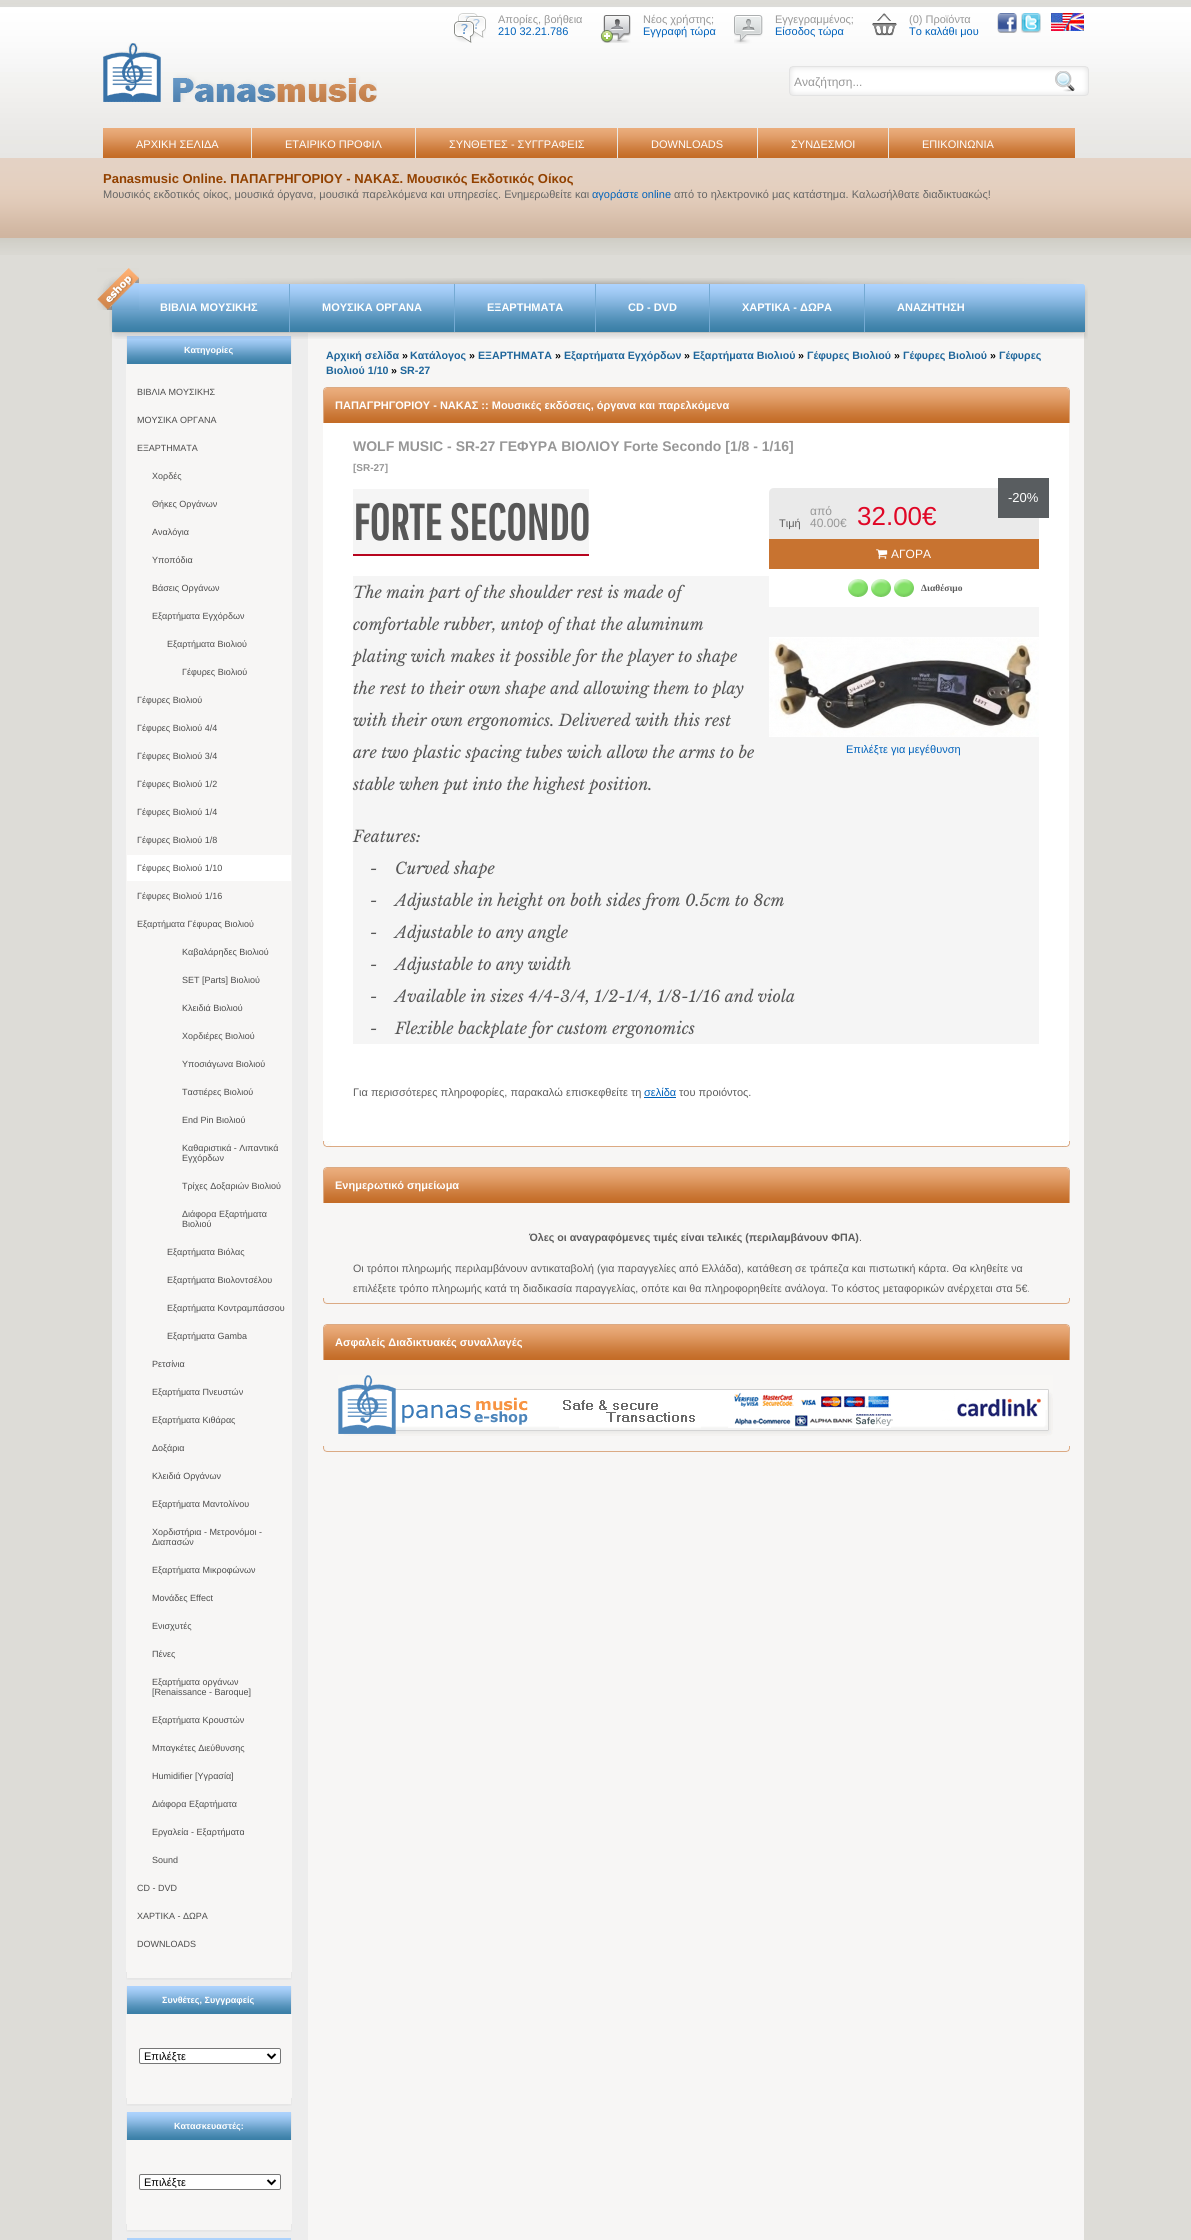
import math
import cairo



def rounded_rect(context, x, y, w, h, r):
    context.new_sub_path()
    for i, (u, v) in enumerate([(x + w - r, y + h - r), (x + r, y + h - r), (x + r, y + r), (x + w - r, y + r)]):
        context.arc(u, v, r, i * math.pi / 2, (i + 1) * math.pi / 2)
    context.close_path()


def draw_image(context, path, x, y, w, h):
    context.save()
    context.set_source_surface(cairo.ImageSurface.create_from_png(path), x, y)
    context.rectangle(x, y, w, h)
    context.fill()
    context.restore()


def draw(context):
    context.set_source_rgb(1, 1, 1)
    context.paint()
    draw_image(context, "images/1.png", 0, 0, 1191, 158)
    draw_image(context, "images/2.png", 103, 43, 274, 59)
    draw_image(context, "images/3.png", 454, 13, 32, 30)
    draw_image(context, "images/4.png", 600, 15, 31, 28)
    draw_image(context, "images/5.png", 734, 15, 29, 29)
    draw_image(context, "images/6.png", 872, 13, 25, 23)
    draw_image(context, "images/7.png", 997, 13, 20, 20)
    draw_image(context, "images/8.png", 1021, 13, 20, 20)
    draw_image(context, "images/9.png", 1051, 13, 33, 18)
    draw_image(context, "images/10.png", 789, 66, 260, 30)
    draw_image(context, "images/11.png", 1049, 66, 40, 30)
    draw_image(context, "images/12.png", 103, 128, 972, 30)
    draw_image(context, "images/13.png", 251, 128, 1, 30)
    draw_image(context, "images/13.png", 415, 128, 1, 30)
    draw_image(context, "images/13.png", 617, 128, 1, 30)
    draw_image(context, "images/13.png", 757, 128, 1, 30)
    draw_image(context, "images/13.png", 888, 128, 1, 30)
    draw_image(context, "images/14.png", 0, 158, 1191, 80)
    context.set_source_rgb(221 / 255, 220 / 255, 215 / 255)
    context.rectangle(0, 255, 1191, 1985)
    context.fill()
    draw_image(context, "images/15.png", 0, 238, 1191, 17)
    draw_image(context, "images/18.png", 112, 333, 972, 1907)
    draw_image(context, "images/19.png", 126, 336, 166, 28)
    draw_image(context, "images/17.png", 109, 278, 979, 61)
    draw_image(context, "images/16.png", 97, 268, 42, 42)
    context.set_source_rgb(117 / 255, 170 / 255, 211 / 255)
    context.rectangle(289, 284, 1, 48)
    context.fill()
    context.rectangle(454, 284, 1, 48)
    context.fill()
    context.rectangle(595, 284, 1, 48)
    context.fill()
    context.rectangle(709, 284, 1, 48)
    context.fill()
    context.rectangle(864, 284, 1, 48)
    context.fill()
    context.set_source_rgb(247 / 255, 246 / 255, 245 / 255)
    context.rectangle(126, 364, 166, 1608)
    context.fill()
    context.set_source_rgb(1, 1, 1)
    context.rectangle(127, 855, 164, 26)
    context.fill()
    draw_image(context, "images/20.png", 126, 1972, 166, 8)
    draw_image(context, "images/19.png", 126, 1986, 166, 28)
    context.set_source_rgb(247 / 255, 246 / 255, 245 / 255)
    context.rectangle(126, 2014, 166, 84)
    context.fill()
    context.set_source_rgb(1, 1, 1)
    rounded_rect(context, 139.5, 2048.5, 141, 15, 1.5)
    context.fill_preserve()
    context.set_source_rgb(118 / 255, 118 / 255, 118 / 255)
    context.set_line_width(1)
    context.stroke()
    context.new_path()
    context.move_to(267.5, 2054)
    context.line_to(271.5, 2058)
    context.line_to(275.5, 2054)
    context.set_source_rgb(0, 0, 0)
    context.set_line_width(2)
    context.stroke()
    draw_image(context, "images/20.png", 126, 2098, 166, 8)
    draw_image(context, "images/19.png", 126, 2112, 166, 28)
    context.set_source_rgb(247 / 255, 246 / 255, 245 / 255)
    context.rectangle(126, 2140, 166, 84)
    context.fill()
    context.set_source_rgb(1, 1, 1)
    rounded_rect(context, 139.5, 2174.5, 141, 15, 1.5)
    context.fill_preserve()
    context.set_source_rgb(118 / 255, 118 / 255, 118 / 255)
    context.set_line_width(1)
    context.stroke()
    context.new_path()
    context.move_to(267.5, 2180)
    context.line_to(271.5, 2184)
    context.line_to(275.5, 2180)
    context.set_source_rgb(0, 0, 0)
    context.set_line_width(2)
    context.stroke()
    draw_image(context, "images/20.png", 126, 2224, 166, 8)
    context.set_source_rgb(172 / 255, 210 / 255, 252 / 255)
    context.rectangle(127, 2238, 164, 2)
    context.fill()
    draw_image(context, "images/21.png", 323, 387, 747, 36)
    context.set_source_rgb(1, 1, 1)
    context.rectangle(323, 423, 746, 718)
    context.fill()
    context.set_source_rgb(245 / 255, 245 / 255, 245 / 255)
    context.rectangle(353, 489, 236, 65)
    context.fill()
    context.set_source_rgb(183 / 255, 5 / 255, 31 / 255)
    context.rectangle(353, 554, 236, 2)
    context.fill()
    context.set_source_rgb(245 / 255, 245 / 255, 245 / 255)
    context.rectangle(353, 576, 686, 468)
    context.fill()
    context.set_source_rgb(234 / 255, 234 / 255, 234 / 255)
    context.new_path()
    context.move_to(774, 488)
    context.line_to(1034, 488)
    context.curve_to(1037, 488, 1039, 490, 1039, 493)
    context.line_to(1039, 607)
    context.line_to(769, 607)
    context.line_to(769, 493)
    context.curve_to(769, 490, 771, 488, 774, 488)
    context.close_path()
    context.fill()
    context.set_source_rgb(89 / 255, 93 / 255, 96 / 255)
    context.rectangle(998, 478, 51, 40)
    context.fill()
    context.set_source_rgb(200 / 255, 115 / 255, 48 / 255)
    context.rectangle(769, 539, 270, 30)
    context.fill()
    draw_image(context, "images/22.png", 876, 549, 12, 10)
    context.set_source_rgb(1, 1, 1)
    context.rectangle(769, 569, 270, 38)
    context.fill()
    draw_image(context, "images/23.png", 848, 579, 66, 18)
    draw_image(context, "images/24.png", 769, 637, 270, 100)
    context.set_source_rgb(0, 98 / 255, 187 / 255)
    context.rectangle(644, 1097, 32, 1)
    context.fill()
    draw_image(context, "images/25.png", 323, 1141, 747, 6)
    draw_image(context, "images/21.png", 323, 1167, 747, 36)
    draw_image(context, "images/26.png", 323, 1298, 747, 6)
    draw_image(context, "images/21.png", 323, 1324, 747, 36)
    draw_image(context, "images/27.png", 338, 1375, 715, 61)
    draw_image(context, "images/26.png", 323, 1446, 747, 6)
    context.select_font_face("Liberation Sans")
    context.set_font_size(11)
    context.set_source_rgb(151 / 255, 151 / 255, 151 / 255)
    context.move_to(498, 23)
    context.show_text("Απορίες, βοήθεια")
    context.set_source_rgb(0, 98 / 255, 187 / 255)
    context.move_to(498, 35)
    context.show_text("210 32.21.786")
    context.set_source_rgb(151 / 255, 151 / 255, 151 / 255)
    context.move_to(643, 23)
    context.show_text("Νέος χρήστης;")
    context.set_source_rgb(0, 98 / 255, 187 / 255)
    context.move_to(643, 35)
    context.show_text("Εγγραφή τώρα")
    context.set_source_rgb(151 / 255, 151 / 255, 151 / 255)
    context.move_to(775, 23)
    context.show_text("Εγγεγραμμένος;")
    context.set_source_rgb(0, 98 / 255, 187 / 255)
    context.move_to(775, 35)
    context.show_text("Είσοδος τώρα")
    context.set_source_rgb(151 / 255, 151 / 255, 151 / 255)
    context.move_to(909, 23)
    context.show_text("(0) Προϊόντα")
    context.set_source_rgb(0, 98 / 255, 187 / 255)
    context.move_to(909, 35)
    context.show_text("Το καλάθι μου")
    context.set_font_size(12)
    context.set_source_rgb(151 / 255, 151 / 255, 151 / 255)
    context.move_to(794, 86)
    context.show_text("Αναζήτηση...")
    context.set_font_size(11)
    context.set_source_rgb(1, 1, 1)
    context.move_to(136, 148)
    context.show_text("ΑΡΧΙΚΗ ΣΕΛΙΔΑ")
    context.move_to(285, 148)
    context.show_text("ΕΤΑΙΡΙΚΟ ΠΡΟΦΙΛ")
    context.move_to(449, 148)
    context.show_text("ΣΥΝΘΕΤΕΣ - ΣΥΓΓΡΑΦΕΙΣ")
    context.move_to(651, 148)
    context.show_text("DOWNLOADS")
    context.move_to(791, 148)
    context.show_text("ΣΥΝΔΕΣΜΟΙ")
    context.move_to(922, 148)
    context.show_text("ΕΠΙΚΟΙΝΩΝΙΑ")
    context.select_font_face("Liberation Sans", cairo.FontSlant.NORMAL, cairo.FontWeight.BOLD)
    context.set_font_size(13)
    context.set_source_rgb(146 / 255, 65 / 255, 0)
    context.move_to(103, 183)
    context.show_text("Panasmusic Online. ΠΑΠΑΓΡΗΓΟΡΙΟΥ - ΝΑΚΑΣ. Μουσικός Εκδοτικός Οίκος")
    context.select_font_face("Liberation Sans")
    context.set_font_size(11)
    context.set_source_rgb(101 / 255, 101 / 255, 101 / 255)
    context.move_to(103, 198)
    context.show_text("Μουσικός εκδοτικός οίκος, μουσικά όργανα, μουσικά παρελκόμενα και υπηρεσίες. Ενημερωθείτε και")
    context.set_source_rgb(0, 98 / 255, 187 / 255)
    context.move_to(592, 198)
    context.show_text("αγοράστε online")
    context.set_source_rgb(101 / 255, 101 / 255, 101 / 255)
    context.move_to(674, 198)
    context.show_text("από το ηλεκτρονικό μας κατάστημα. Καλωσήλθατε διαδικτυακώς!")
    context.select_font_face("Liberation Sans", cairo.FontSlant.NORMAL, cairo.FontWeight.BOLD)
    context.set_source_rgb(1, 1, 1)
    context.move_to(160, 311)
    context.show_text("ΒΙΒΛΙΑ ΜΟΥΣΙΚΗΣ")
    context.move_to(322, 311)
    context.show_text("ΜΟΥΣΙΚΑ ΟΡΓΑΝΑ")
    context.move_to(487, 311)
    context.show_text("ΕΞΑΡΤΗΜΑΤΑ")
    context.move_to(628, 311)
    context.show_text("CD - DVD")
    context.move_to(742, 311)
    context.show_text("ΧΑΡΤΙΚΑ - ΔΩΡΑ")
    context.move_to(897, 311)
    context.show_text("ΑΝΑΖΗΤΗΣΗ")
    context.set_font_size(9)
    context.move_to(184, 353)
    context.show_text("Κατηγορίες")
    context.select_font_face("Liberation Sans")
    context.set_source_rgb(76 / 255, 76 / 255, 76 / 255)
    context.move_to(137, 395)
    context.show_text("ΒΙΒΛΙΑ ΜΟΥΣΙΚΗΣ")
    context.move_to(137, 423)
    context.show_text("ΜΟΥΣΙΚΑ ΟΡΓΑΝΑ")
    context.move_to(137, 451)
    context.show_text("ΕΞΑΡΤΗΜΑΤΑ")
    context.move_to(152, 479)
    context.show_text("Χορδές")
    context.move_to(152, 507)
    context.show_text("Θήκες Οργάνων")
    context.move_to(152, 535)
    context.show_text("Αναλόγια")
    context.move_to(152, 563)
    context.show_text("Υποπόδια")
    context.move_to(152, 591)
    context.show_text("Βάσεις Οργάνων")
    context.move_to(152, 619)
    context.show_text("Εξαρτήματα Εγχόρδων")
    context.move_to(167, 647)
    context.show_text("Εξαρτήματα Βιολιού")
    context.move_to(182, 675)
    context.show_text("Γέφυρες Βιολιού")
    context.move_to(137, 703)
    context.show_text("Γέφυρες Βιολιού")
    context.move_to(137, 731)
    context.show_text("Γέφυρες Βιολιού 4/4")
    context.move_to(137, 759)
    context.show_text("Γέφυρες Βιολιού 3/4")
    context.move_to(137, 787)
    context.show_text("Γέφυρες Βιολιού 1/2")
    context.move_to(137, 815)
    context.show_text("Γέφυρες Βιολιού 1/4")
    context.move_to(137, 843)
    context.show_text("Γέφυρες Βιολιού 1/8")
    context.move_to(137, 871)
    context.show_text("Γέφυρες Βιολιού 1/10")
    context.move_to(137, 899)
    context.show_text("Γέφυρες Βιολιού 1/16")
    context.move_to(137, 927)
    context.show_text("Εξαρτήματα Γέφυρας Βιολιού")
    context.move_to(182, 955)
    context.show_text("Καβαλάρηδες Βιολιού")
    context.move_to(182, 983)
    context.show_text("SET [Parts] Βιολιού")
    context.move_to(182, 1011)
    context.show_text("Κλειδιά Βιολιού")
    context.move_to(182, 1039)
    context.show_text("Χορδιέρες Βιολιού")
    context.move_to(182, 1067)
    context.show_text("Υποσιάγωνα Βιολιού")
    context.move_to(182, 1095)
    context.show_text("Ταστιέρες Βιολιού")
    context.move_to(182, 1123)
    context.show_text("End Pin Βιολιού")
    context.move_to(182, 1151)
    context.show_text("Καθαριστικά - Λιπαντικά")
    context.move_to(182, 1161)
    context.show_text("Εγχόρδων")
    context.move_to(182, 1189)
    context.show_text("Τρίχες Δοξαριών Βιολιού")
    context.move_to(182, 1217)
    context.show_text("Διάφορα Εξαρτήματα")
    context.move_to(182, 1227)
    context.show_text("Βιολιού")
    context.move_to(167, 1255)
    context.show_text("Εξαρτήματα Βιόλας")
    context.move_to(167, 1283)
    context.show_text("Εξαρτήματα Βιολοντσέλου")
    context.move_to(167, 1311)
    context.show_text("Εξαρτήματα Κοντραμπάσσου")
    context.move_to(167, 1339)
    context.show_text("Εξαρτήματα Gamba")
    context.move_to(152, 1367)
    context.show_text("Ρετσίνια")
    context.move_to(152, 1395)
    context.show_text("Εξαρτήματα Πνευστών")
    context.move_to(152, 1423)
    context.show_text("Εξαρτήματα Κιθάρας")
    context.move_to(152, 1451)
    context.show_text("Δοξάρια")
    context.move_to(152, 1479)
    context.show_text("Κλειδιά Οργάνων")
    context.move_to(152, 1507)
    context.show_text("Εξαρτήματα Μαντολίνου")
    context.move_to(152, 1535)
    context.show_text("Χορδιστήρια - Μετρονόμοι -")
    context.move_to(152, 1545)
    context.show_text("Διαπασών")
    context.move_to(152, 1573)
    context.show_text("Εξαρτήματα Μικροφώνων")
    context.move_to(152, 1601)
    context.show_text("Μονάδες Effect")
    context.move_to(152, 1629)
    context.show_text("Ενισχυτές")
    context.move_to(152, 1657)
    context.show_text("Πένες")
    context.move_to(152, 1685)
    context.show_text("Εξαρτήματα οργάνων")
    context.move_to(152, 1695)
    context.show_text("[Renaissance - Baroque]")
    context.move_to(152, 1723)
    context.show_text("Εξαρτήματα Κρουστών")
    context.move_to(152, 1751)
    context.show_text("Μπαγκέτες Διεύθυνσης")
    context.move_to(152, 1779)
    context.show_text("Humidifier [Υγρασία]")
    context.move_to(152, 1807)
    context.show_text("Διάφορα Εξαρτήματα")
    context.move_to(152, 1835)
    context.show_text("Εργαλεία - Εξαρτήματα")
    context.move_to(152, 1863)
    context.show_text("Sound")
    context.move_to(137, 1891)
    context.show_text("CD - DVD")
    context.move_to(137, 1919)
    context.show_text("ΧΑΡΤΙΚΑ - ΔΩΡΑ")
    context.move_to(137, 1947)
    context.show_text("DOWNLOADS")
    context.select_font_face("Liberation Sans", cairo.FontSlant.NORMAL, cairo.FontWeight.BOLD)
    context.set_source_rgb(1, 1, 1)
    context.move_to(162, 2003)
    context.show_text("Συνθέτες, Συγγραφείς")
    context.select_font_face("Liberation Sans")
    context.set_font_size(11)
    context.set_source_rgb(0, 0, 0)
    context.move_to(144, 2060)
    context.show_text("Επιλέξτε")
    context.select_font_face("Liberation Sans", cairo.FontSlant.NORMAL, cairo.FontWeight.BOLD)
    context.set_font_size(9)
    context.set_source_rgb(1, 1, 1)
    context.move_to(174, 2129)
    context.show_text("Κατασκευαστές:")
    context.select_font_face("Liberation Sans")
    context.set_font_size(11)
    context.set_source_rgb(0, 0, 0)
    context.move_to(144, 2186)
    context.show_text("Επιλέξτε")
    context.select_font_face("Liberation Sans", cairo.FontSlant.NORMAL, cairo.FontWeight.BOLD)
    context.set_font_size(10.67)
    context.set_source_rgb(30 / 255, 101 / 255, 154 / 255)
    context.move_to(326, 359)
    context.show_text("Αρχική σελίδα")
    context.set_source_rgb(0, 0, 0)
    context.move_to(402, 359)
    context.show_text("»")
    context.set_source_rgb(30 / 255, 101 / 255, 154 / 255)
    context.move_to(410, 359)
    context.show_text("Κατάλογος")
    context.set_source_rgb(0, 0, 0)
    context.move_to(469, 359)
    context.show_text("»")
    context.set_source_rgb(30 / 255, 101 / 255, 154 / 255)
    context.move_to(478, 359)
    context.show_text("ΕΞΑΡΤΗΜΑΤΑ")
    context.set_source_rgb(0, 0, 0)
    context.move_to(555, 359)
    context.show_text("»")
    context.set_source_rgb(30 / 255, 101 / 255, 154 / 255)
    context.move_to(564, 359)
    context.show_text("Εξαρτήματα Εγχόρδων")
    context.set_source_rgb(0, 0, 0)
    context.move_to(684, 359)
    context.show_text("»")
    context.set_source_rgb(30 / 255, 101 / 255, 154 / 255)
    context.move_to(693, 359)
    context.show_text("Εξαρτήματα Βιολιού")
    context.set_source_rgb(0, 0, 0)
    context.move_to(798, 359)
    context.show_text("»")
    context.set_source_rgb(30 / 255, 101 / 255, 154 / 255)
    context.move_to(807, 359)
    context.show_text("Γέφυρες Βιολιού")
    context.set_source_rgb(0, 0, 0)
    context.move_to(894, 359)
    context.show_text("»")
    context.set_source_rgb(30 / 255, 101 / 255, 154 / 255)
    context.move_to(903, 359)
    context.show_text("Γέφυρες Βιολιού")
    context.set_source_rgb(0, 0, 0)
    context.move_to(990, 359)
    context.show_text("»")
    context.set_source_rgb(30 / 255, 101 / 255, 154 / 255)
    context.move_to(999, 359)
    context.show_text("Γέφυρες")
    context.move_to(326, 374)
    context.show_text("Βιολιού 1/10")
    context.set_source_rgb(0, 0, 0)
    context.move_to(391, 374)
    context.show_text("»")
    context.set_source_rgb(30 / 255, 101 / 255, 154 / 255)
    context.move_to(400, 374)
    context.show_text("SR-27")
    context.set_font_size(11)
    context.set_source_rgb(1, 1, 1)
    context.move_to(335, 409)
    context.show_text("ΠΑΠΑΓΡΗΓΟΡΙΟΥ - ΝΑΚΑΣ :: Μουσικές εκδόσεις, όργανα και παρελκόμενα")
    context.set_font_size(14)
    context.set_source_rgb(151 / 255, 151 / 255, 151 / 255)
    context.move_to(353, 451)
    context.show_text("WOLF MUSIC - SR-27 ΓΕΦΥΡΑ BIOΛIΟΥ Forte Secondo [1/8 - 1/16]")
    context.set_font_size(10)
    context.move_to(353, 471)
    context.show_text("[SR-27]")
    context.select_font_face("Pathway Gothic One", cairo.FontSlant.NORMAL, cairo.FontWeight.BOLD)
    context.set_font_size(50)
    context.set_source_rgb(87 / 255, 87 / 255, 87 / 255)
    context.move_to(353, 540)
    context.show_text("FORTE SECONDO")
    context.select_font_face("Liberation Sans")
    context.set_font_size(13)
    context.set_source_rgb(1, 1, 1)
    context.move_to(1008, 502)
    context.show_text("-20%")
    context.set_font_size(11)
    context.set_source_rgb(93 / 255, 93 / 255, 93 / 255)
    context.move_to(779, 527)
    context.show_text("Τιμή")
    context.set_font_size(12)
    context.set_source_rgb(151 / 255, 151 / 255, 151 / 255)
    context.move_to(810, 515)
    context.show_text("από")
    context.move_to(810, 527)
    context.show_text("40.00€")
    context.set_font_size(26)
    context.set_source_rgb(224 / 255, 7 / 255, 38 / 255)
    context.move_to(857, 525)
    context.show_text("32.00€")
    context.set_font_size(12)
    context.set_source_rgb(1, 1, 1)
    context.move_to(891, 558)
    context.show_text("ΑΓΟΡΑ")
    context.select_font_face("Liberation Serif", cairo.FontSlant.NORMAL, cairo.FontWeight.BOLD)
    context.set_font_size(9.5)
    context.set_source_rgb(93 / 255, 93 / 255, 93 / 255)
    context.move_to(921, 591)
    context.show_text("Διαθέσιμο")
    context.select_font_face("Liberation Sans")
    context.set_font_size(11)
    context.set_source_rgb(0, 98 / 255, 187 / 255)
    context.move_to(846, 753)
    context.show_text("Επιλέξτε για μεγέθυνση")
    context.select_font_face("Libre Baskerville", cairo.FontSlant.ITALIC)
    context.set_font_size(16)
    context.set_source_rgb(87 / 255, 87 / 255, 87 / 255)
    context.move_to(353, 598)
    context.show_text("The main part of the shoulder rest is made of")
    context.move_to(353, 630)
    context.show_text("comfortable rubber, untop of that the aluminum")
    context.move_to(353, 662)
    context.show_text("plating wich makes it possible for the player to shape")
    context.move_to(353, 694)
    context.show_text("the rest to their own shape and allowing them to play")
    context.move_to(353, 726)
    context.show_text("with their own ergonomics. Delivered with this rest")
    context.move_to(353, 758)
    context.show_text("are two plastic spacing tubes wich allow the arms to be")
    context.move_to(353, 790)
    context.show_text("stable when put into the highest position.")
    context.move_to(353, 842)
    context.show_text("Features:")
    context.move_to(370, 874)
    context.show_text("-    Curved shape")
    context.move_to(370, 906)
    context.show_text("-    Adjustable in height on both sides from 0.5cm to 8cm")
    context.move_to(370, 938)
    context.show_text("-    Adjustable to any angle")
    context.move_to(370, 970)
    context.show_text("-    Adjustable to any width")
    context.move_to(370, 1002)
    context.show_text("-    Available in sizes 4/4-3/4, 1/2-1/4, 1/8-1/16 and viola")
    context.move_to(370, 1034)
    context.show_text("-    Flexible backplate for custom ergonomics")
    context.select_font_face("Liberation Sans")
    context.set_font_size(11)
    context.set_source_rgb(93 / 255, 93 / 255, 93 / 255)
    context.move_to(353, 1096)
    context.show_text("Για περισσότερες πληροφορίες, παρακαλώ επισκεφθείτε τη")
    context.set_source_rgb(0, 98 / 255, 187 / 255)
    context.move_to(644, 1096)
    context.show_text("σελίδα")
    context.set_source_rgb(93 / 255, 93 / 255, 93 / 255)
    context.move_to(679, 1096)
    context.show_text("του προιόντος.")
    context.select_font_face("Liberation Sans", cairo.FontSlant.NORMAL, cairo.FontWeight.BOLD)
    context.set_source_rgb(1, 1, 1)
    context.move_to(335, 1189)
    context.show_text("Ενημερωτικό σημείωμα")
    context.set_font_size(10.67)
    context.set_source_rgb(93 / 255, 93 / 255, 93 / 255)
    context.move_to(529, 1241)
    context.show_text("Όλες οι αναγραφόμενες τιμές είναι τελικές (περιλαμβάνουν ΦΠΑ)")
    context.select_font_face("Liberation Sans")
    context.move_to(859, 1241)
    context.show_text(".")
    context.move_to(353, 1272)
    context.show_text("Οι τρόποι πληρωμής περιλαμβάνουν αντικαταβολή (για παραγγελίες από Ελλάδα), κατάθεση σε τράπεζα και πιστωτική κάρτα. Θα κληθείτε να")
    context.move_to(353, 1292)
    context.show_text("επιλέξετε τρόπο πληρωμής κατά τη διαδικασία παραγγελίας, οπότε και θα πληροφορηθείτε ανάλογα. Το κόστος μεταφορικών ανέρχεται στα 5€.")
    context.select_font_face("Liberation Sans", cairo.FontSlant.NORMAL, cairo.FontWeight.BOLD)
    context.set_font_size(11)
    context.set_source_rgb(1, 1, 1)
    context.move_to(335, 1346)
    context.show_text("Ασφαλείς Διαδικτυακές συναλλαγές")


surface = cairo.ImageSurface(cairo.Format.RGB24, 1191, 2240)
context = cairo.Context(surface)
options = cairo.FontOptions()
options.set_hint_metrics(cairo.HintMetrics.OFF)
options.set_hint_style(cairo.HintStyle.NONE)
context.set_font_options(options)
context.set_miter_limit(4)
draw(context)
surface.write_to_png("out.png")
